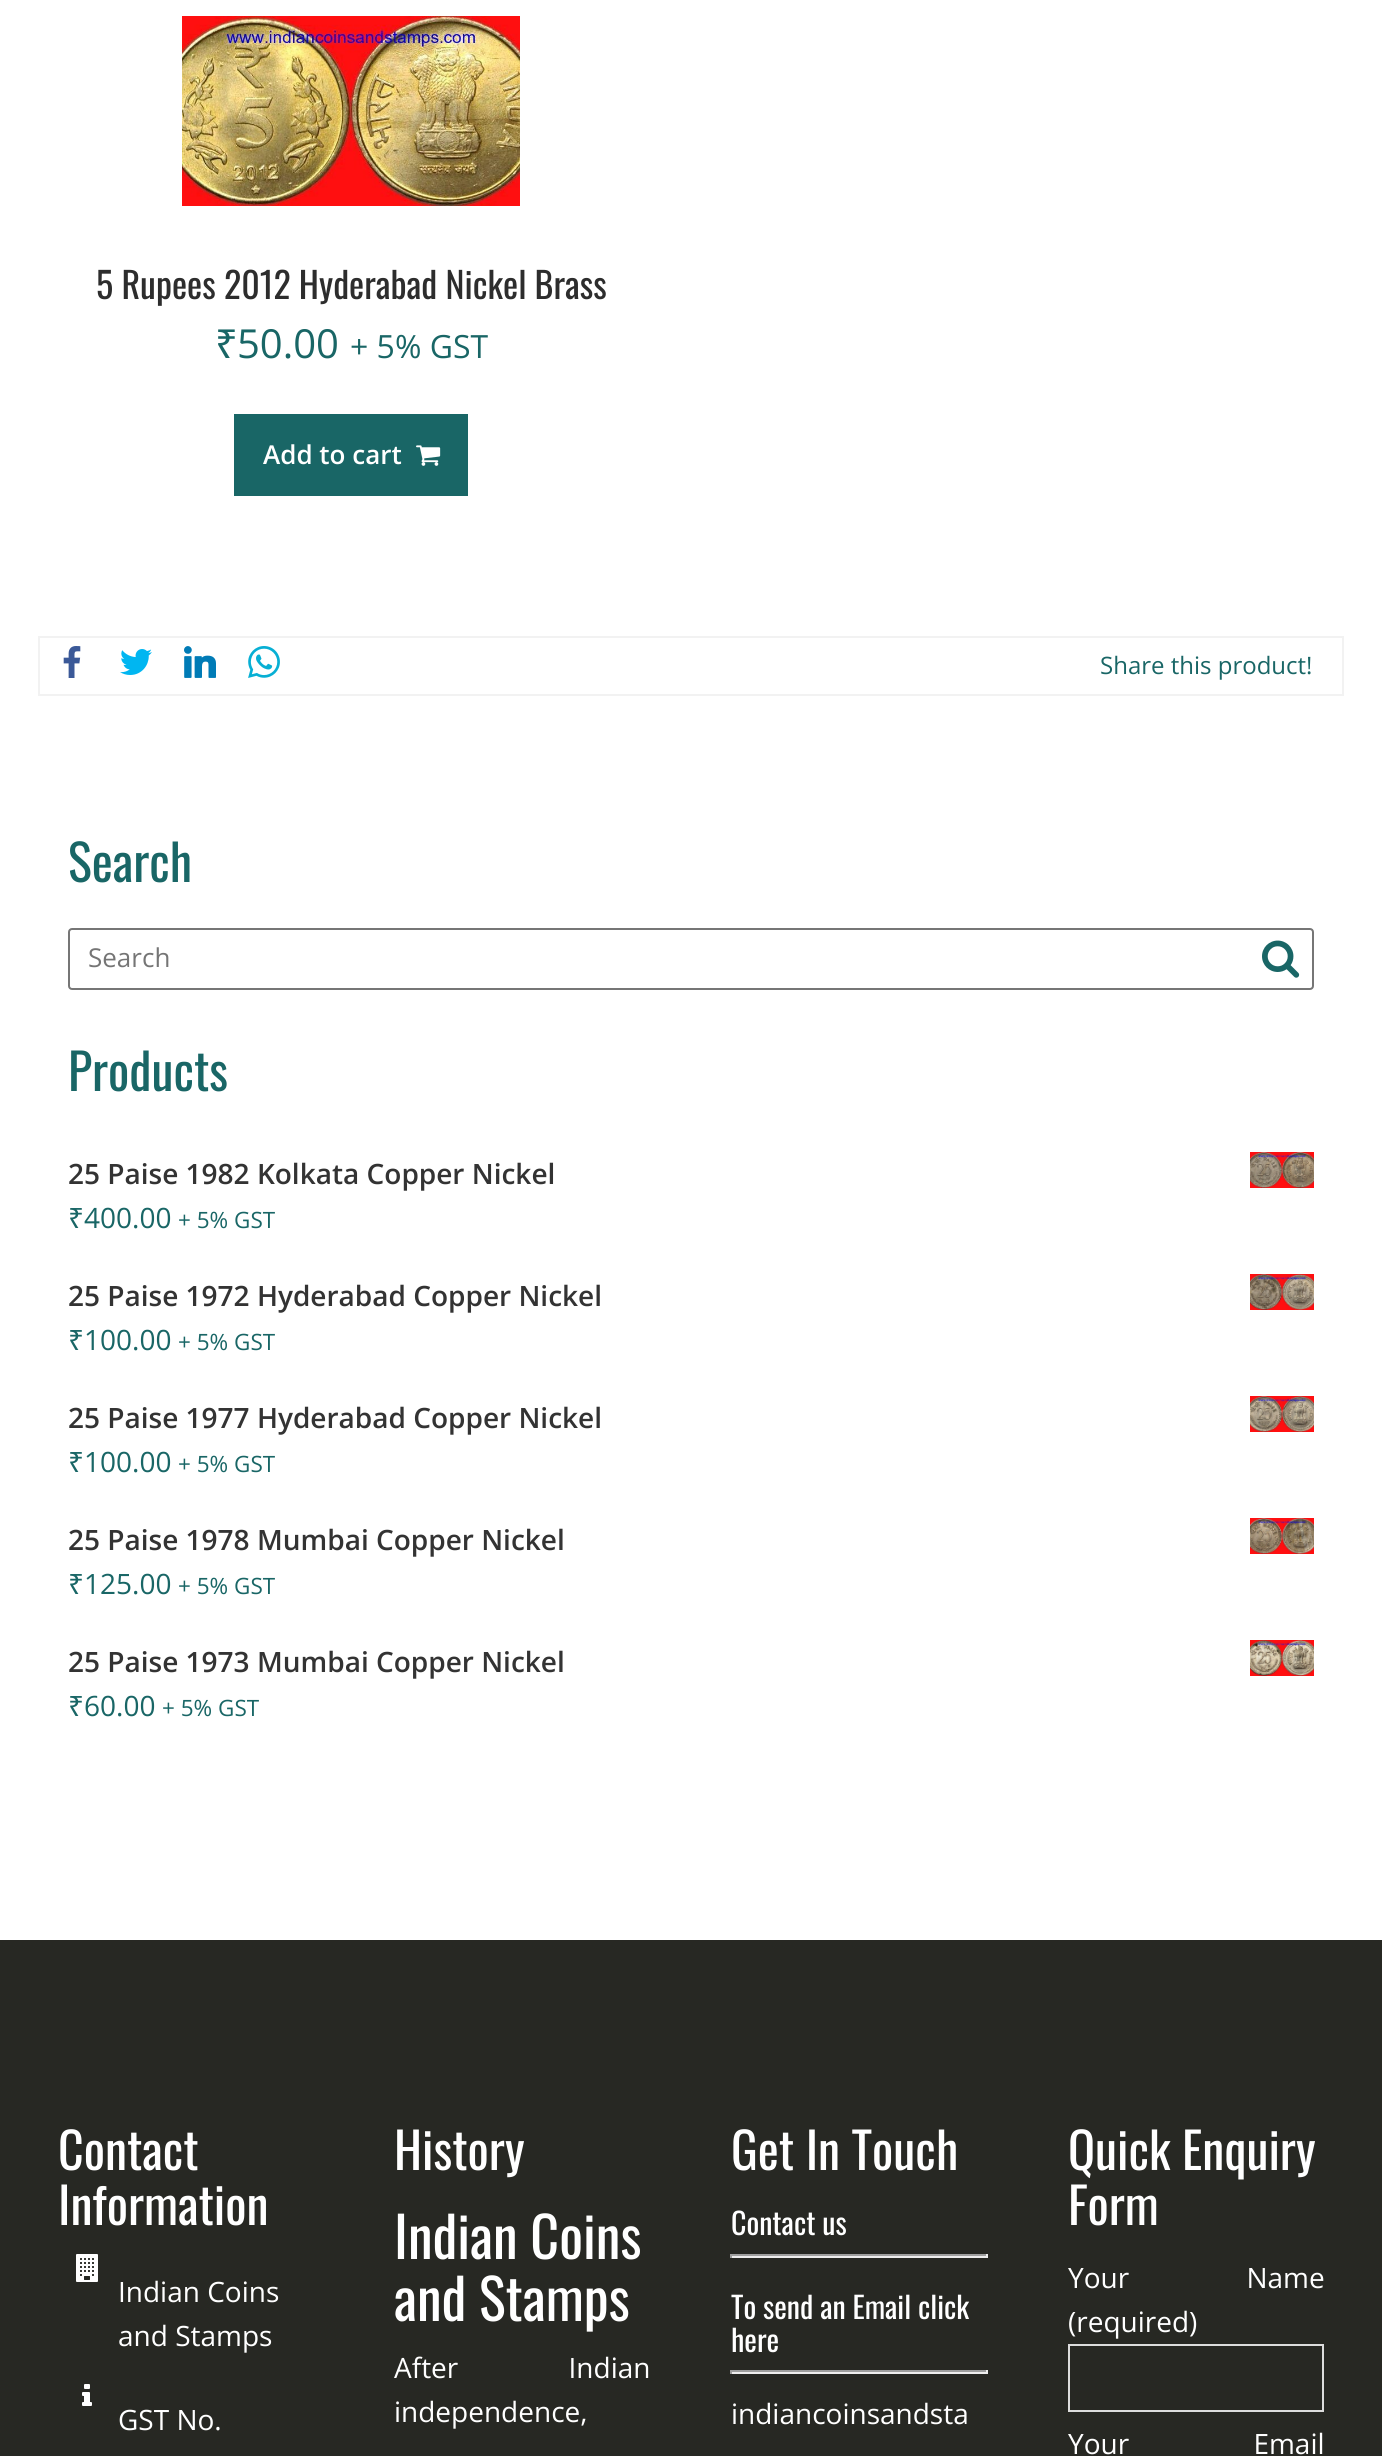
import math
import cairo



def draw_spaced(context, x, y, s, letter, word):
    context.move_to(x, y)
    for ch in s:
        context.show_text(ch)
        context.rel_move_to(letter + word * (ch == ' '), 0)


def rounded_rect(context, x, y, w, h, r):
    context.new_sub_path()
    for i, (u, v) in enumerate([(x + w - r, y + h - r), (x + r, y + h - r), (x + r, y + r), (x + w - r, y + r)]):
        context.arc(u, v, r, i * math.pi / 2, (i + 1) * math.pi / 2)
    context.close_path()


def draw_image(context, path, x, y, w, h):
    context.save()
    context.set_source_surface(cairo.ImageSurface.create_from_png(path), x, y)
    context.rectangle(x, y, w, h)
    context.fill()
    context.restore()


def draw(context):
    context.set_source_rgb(1, 1, 1)
    context.paint()
    draw_image(context, "images/1.png", 182, 16, 338, 190)
    context.set_source_rgb(25 / 255, 102 / 255, 102 / 255)
    context.rectangle(234, 414, 234, 82)
    context.fill()
    draw_image(context, "images/2.png", 416, 445, 25, 21)
    context.rectangle(39, 637, 1304, 58)
    context.set_source_rgb(242 / 255, 242 / 255, 242 / 255)
    context.stroke()
    draw_image(context, "images/3.png", 63, 646, 18, 32)
    draw_image(context, "images/4.png", 120, 649, 32, 26)
    draw_image(context, "images/5.png", 184, 646, 32, 32)
    draw_image(context, "images/6.png", 248, 646, 32, 32)
    rounded_rect(context, 69, 929, 1244, 60, 3)
    context.set_source_rgb(118 / 255, 118 / 255, 118 / 255)
    context.stroke()
    draw_image(context, "images/7.png", 1262, 940, 38, 38)
    draw_image(context, "images/8.png", 1250, 1152, 64, 36)
    draw_image(context, "images/9.png", 1250, 1274, 64, 36)
    draw_image(context, "images/10.png", 1250, 1396, 64, 36)
    draw_image(context, "images/11.png", 1250, 1518, 64, 36)
    draw_image(context, "images/12.png", 1250, 1640, 64, 36)
    context.set_source_rgb(39 / 255, 40 / 255, 35 / 255)
    context.rectangle(0, 1940, 1382, 516)
    context.fill()
    draw_image(context, "images/13.png", 76, 2254, 22, 28)
    draw_image(context, "images/14.png", 82, 2384, 10, 22)
    context.set_source_rgb(159 / 255, 159 / 255, 159 / 255)
    context.rectangle(730, 2254, 258, 2)
    context.fill()
    context.set_source_rgb(238 / 255, 238 / 255, 238 / 255)
    context.rectangle(986, 2254, 2, 4)
    context.fill()
    context.rectangle(730, 2256, 258, 2)
    context.fill()
    context.set_source_rgb(159 / 255, 159 / 255, 159 / 255)
    context.rectangle(730, 2254, 2, 4)
    context.fill()
    context.rectangle(730, 2370, 258, 2)
    context.fill()
    context.set_source_rgb(238 / 255, 238 / 255, 238 / 255)
    context.rectangle(986, 2370, 2, 4)
    context.fill()
    context.rectangle(730, 2372, 258, 2)
    context.fill()
    context.set_source_rgb(159 / 255, 159 / 255, 159 / 255)
    context.rectangle(730, 2370, 2, 4)
    context.fill()
    context.rectangle(1069, 2345, 254, 66)
    context.set_source_rgb(221 / 255, 221 / 255, 221 / 255)
    context.stroke()
    context.select_font_face("Oswald")
    context.set_font_size(36)
    context.set_source_rgb(45 / 255, 45 / 255, 45 / 255)
    context.move_to(96, 299)
    context.show_text("5 Rupees 2012 Hyderabad Nickel Brass")
    context.select_font_face("Noto Sans")
    context.set_font_size(40)
    context.set_source_rgb(25 / 255, 102 / 255, 102 / 255)
    context.move_to(215, 358)
    context.show_text("₹")
    context.select_font_face("Open Sans")
    context.move_to(237, 358)
    context.show_text("50.00")
    context.set_font_size(32)
    context.move_to(350, 358)
    context.show_text("+ 5% GST")
    context.select_font_face("Open Sans SemiBold")
    context.set_font_size(26)
    context.set_source_rgb(1, 1, 1)
    context.move_to(263, 464)
    context.show_text("Add to cart")
    context.select_font_face("Open Sans")
    context.set_font_size(24)
    context.set_source_rgb(25 / 255, 102 / 255, 102 / 255)
    context.move_to(1100, 674)
    context.show_text("Share this product!")
    context.select_font_face("Oswald")
    context.set_font_size(50)
    context.move_to(68, 882)
    context.show_text("Search")
    context.select_font_face("Open Sans")
    context.set_font_size(26)
    context.set_source_rgb(117 / 255, 117 / 255, 117 / 255)
    context.move_to(88, 967)
    context.show_text("Search")
    context.select_font_face("Oswald")
    context.set_font_size(50)
    context.set_source_rgb(25 / 255, 102 / 255, 102 / 255)
    context.move_to(68, 1091)
    context.show_text("Products")
    context.select_font_face("Open Sans SemiBold")
    context.set_font_size(28)
    context.set_source_rgb(51 / 255, 51 / 255, 51 / 255)
    context.move_to(68, 1184)
    context.show_text("25 Paise 1982 Kolkata Copper Nickel")
    context.select_font_face("Noto Sans")
    context.set_source_rgb(25 / 255, 102 / 255, 102 / 255)
    context.move_to(68, 1228)
    context.show_text("₹")
    context.select_font_face("Open Sans")
    context.move_to(84, 1228)
    context.show_text("400.00")
    context.set_font_size(22.5)
    context.move_to(178, 1228)
    context.show_text("+ 5% GST")
    context.select_font_face("Open Sans SemiBold")
    context.set_font_size(28)
    context.set_source_rgb(51 / 255, 51 / 255, 51 / 255)
    context.move_to(68, 1306)
    context.show_text("25 Paise 1972 Hyderabad Copper Nickel")
    context.select_font_face("Noto Sans")
    context.set_source_rgb(25 / 255, 102 / 255, 102 / 255)
    context.move_to(68, 1350)
    context.show_text("₹")
    context.select_font_face("Open Sans")
    context.move_to(84, 1350)
    context.show_text("100.00")
    context.set_font_size(22.5)
    context.move_to(178, 1350)
    context.show_text("+ 5% GST")
    context.select_font_face("Open Sans SemiBold")
    context.set_font_size(28)
    context.set_source_rgb(51 / 255, 51 / 255, 51 / 255)
    context.move_to(68, 1428)
    context.show_text("25 Paise 1977 Hyderabad Copper Nickel")
    context.select_font_face("Noto Sans")
    context.set_source_rgb(25 / 255, 102 / 255, 102 / 255)
    context.move_to(68, 1472)
    context.show_text("₹")
    context.select_font_face("Open Sans")
    context.move_to(84, 1472)
    context.show_text("100.00")
    context.set_font_size(22.5)
    context.move_to(178, 1472)
    context.show_text("+ 5% GST")
    context.select_font_face("Open Sans SemiBold")
    context.set_font_size(28)
    context.set_source_rgb(51 / 255, 51 / 255, 51 / 255)
    context.move_to(68, 1550)
    context.show_text("25 Paise 1978 Mumbai Copper Nickel")
    context.select_font_face("Noto Sans")
    context.set_source_rgb(25 / 255, 102 / 255, 102 / 255)
    context.move_to(68, 1594)
    context.show_text("₹")
    context.select_font_face("Open Sans")
    context.move_to(84, 1594)
    context.show_text("125.00")
    context.set_font_size(22.5)
    context.move_to(178, 1594)
    context.show_text("+ 5% GST")
    context.select_font_face("Open Sans SemiBold")
    context.set_font_size(28)
    context.set_source_rgb(51 / 255, 51 / 255, 51 / 255)
    context.move_to(68, 1672)
    context.show_text("25 Paise 1973 Mumbai Copper Nickel")
    context.select_font_face("Noto Sans")
    context.set_source_rgb(25 / 255, 102 / 255, 102 / 255)
    context.move_to(68, 1716)
    context.show_text("₹")
    context.select_font_face("Open Sans")
    context.move_to(84, 1716)
    context.show_text("60.00")
    context.set_font_size(22.5)
    context.move_to(162, 1716)
    context.show_text("+ 5% GST")
    context.select_font_face("Oswald")
    context.set_font_size(50)
    context.set_source_rgb(1, 1, 1)
    context.move_to(58, 2170)
    context.show_text("Contact")
    context.move_to(58, 2225)
    context.show_text("Information")
    context.select_font_face("Open Sans")
    context.set_font_size(28)
    context.move_to(118, 2302)
    context.show_text("Indian Coins")
    context.move_to(118, 2346)
    context.show_text("and Stamps")
    context.move_to(118, 2430)
    context.show_text("GST No.")
    context.select_font_face("Oswald")
    context.set_font_size(50)
    context.move_to(394, 2170)
    context.show_text("History")
    context.set_font_size(56)
    context.move_to(394, 2259)
    context.show_text("Indian Coins")
    context.move_to(394, 2321)
    context.show_text("and Stamps")
    context.select_font_face("Open Sans")
    context.set_font_size(28)
    draw_spaced(context, 394, 2378, "After Indian", 0, 103)
    context.move_to(394, 2422)
    context.show_text("independence,")
    context.select_font_face("Oswald")
    context.set_font_size(50)
    context.move_to(731, 2170)
    context.show_text("Get In Touch")
    context.set_font_size(30)
    context.move_to(731, 2235)
    context.show_text("Contact us")
    context.move_to(731, 2319)
    context.show_text("To send an Email click")
    context.move_to(731, 2352)
    context.show_text("here")
    context.select_font_face("Open Sans")
    context.set_font_size(28)
    context.move_to(731, 2424)
    context.show_text("indiancoinsandsta")
    context.select_font_face("Oswald")
    context.set_font_size(50)
    context.move_to(1068, 2170)
    context.show_text("Quick Enquiry")
    context.move_to(1068, 2225)
    context.show_text("Form")
    context.select_font_face("Open Sans")
    context.set_font_size(28)
    draw_spaced(context, 1068, 2288, "Your Name", 0, 110)
    context.move_to(1068, 2332)
    context.show_text("(required)")
    draw_spaced(context, 1068, 2454, "Your Email", 0, 117)


surface = cairo.ImageSurface(cairo.Format.RGB24, 1382, 2456)
context = cairo.Context(surface)
options = cairo.FontOptions()
options.set_hint_metrics(cairo.HintMetrics.OFF)
options.set_hint_style(cairo.HintStyle.NONE)
context.set_font_options(options)
context.set_miter_limit(4)
draw(context)
surface.write_to_png("out.png")
